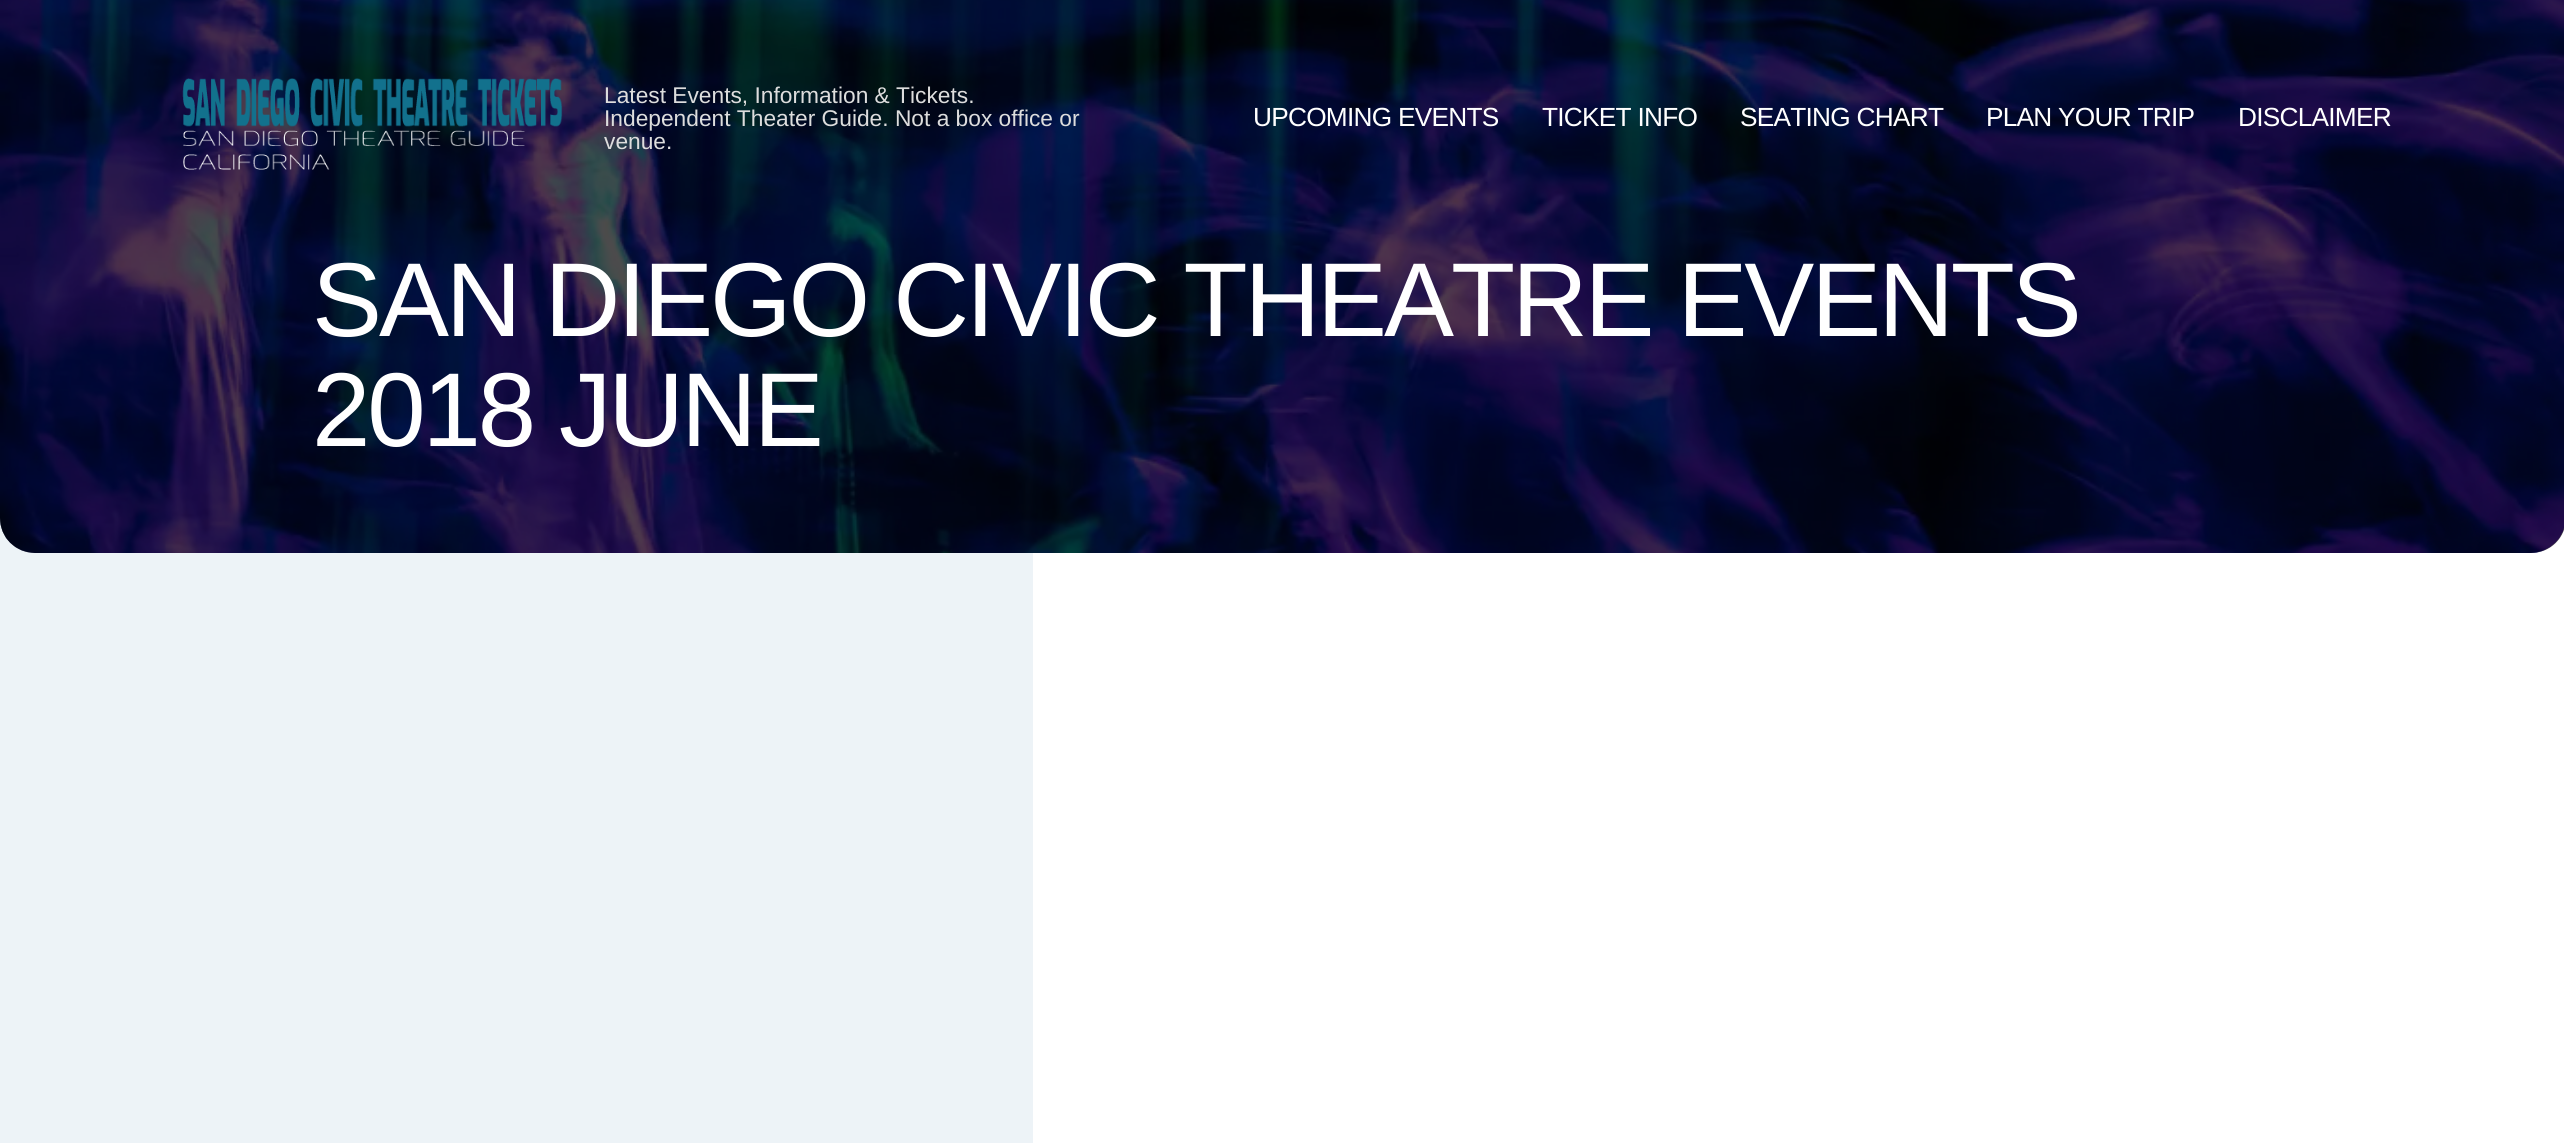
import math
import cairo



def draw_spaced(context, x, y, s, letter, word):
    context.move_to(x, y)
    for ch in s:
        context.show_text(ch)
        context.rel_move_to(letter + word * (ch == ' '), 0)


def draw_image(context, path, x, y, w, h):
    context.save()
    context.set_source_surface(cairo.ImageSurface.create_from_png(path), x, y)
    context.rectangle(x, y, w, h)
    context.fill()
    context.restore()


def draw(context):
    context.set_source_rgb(1, 1, 1)
    context.paint()
    context.set_source_rgb(237 / 255, 243 / 255, 247 / 255)
    context.rectangle(0, 518, 1033, 625)
    context.fill()
    draw_image(context, "images/2.png", 0, 0, 2564, 553)
    context.set_source_rgba(0, 0, 0, 0.7)
    context.new_path()
    context.move_to(0, 0)
    context.line_to(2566, 0)
    context.line_to(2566, 518)
    context.curve_to(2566, 537.5, 2550.5, 553, 2531, 553)
    context.line_to(35, 553)
    context.curve_to(15.5, 553, 0, 537.5, 0, 518)
    context.close_path()
    context.fill()
    draw_image(context, "images/1.png", 182, 78, 381, 92)
    context.select_font_face("Liberation Sans")
    context.set_font_size(22.75)
    context.set_source_rgb(221 / 255, 221 / 255, 221 / 255)
    context.move_to(604, 103)
    context.show_text("Latest Events, Information & Tickets.")
    context.move_to(604, 126)
    context.show_text("Independent Theater Guide. Not a box office or")
    context.move_to(604, 149)
    context.show_text("venue.")
    context.set_font_size(26.25)
    context.set_source_rgb(1, 1, 1)
    draw_spaced(context, 1253, 126, "UPCOMING EVENTS", -0.75, 0)
    draw_spaced(context, 1542, 126, "TICKET INFO", -0.75, 0)
    draw_spaced(context, 1740, 126, "SEATING CHART", -0.75, 0)
    draw_spaced(context, 1986, 126, "PLAN YOUR TRIP", -0.75, 0)
    draw_spaced(context, 2238, 126, "DISCLAIMER", -0.75, 0)
    context.set_font_size(105)
    draw_spaced(context, 312, 336, "SAN DIEGO CIVIC THEATRE EVENTS", -3.15, 0)
    draw_spaced(context, 312, 446, "2018 JUNE", -3.15, 0)


surface = cairo.ImageSurface(cairo.Format.RGB24, 2564, 1143)
context = cairo.Context(surface)
options = cairo.FontOptions()
options.set_hint_metrics(cairo.HintMetrics.OFF)
options.set_hint_style(cairo.HintStyle.NONE)
context.set_font_options(options)
context.set_miter_limit(4)
draw(context)
surface.write_to_png("out.png")
